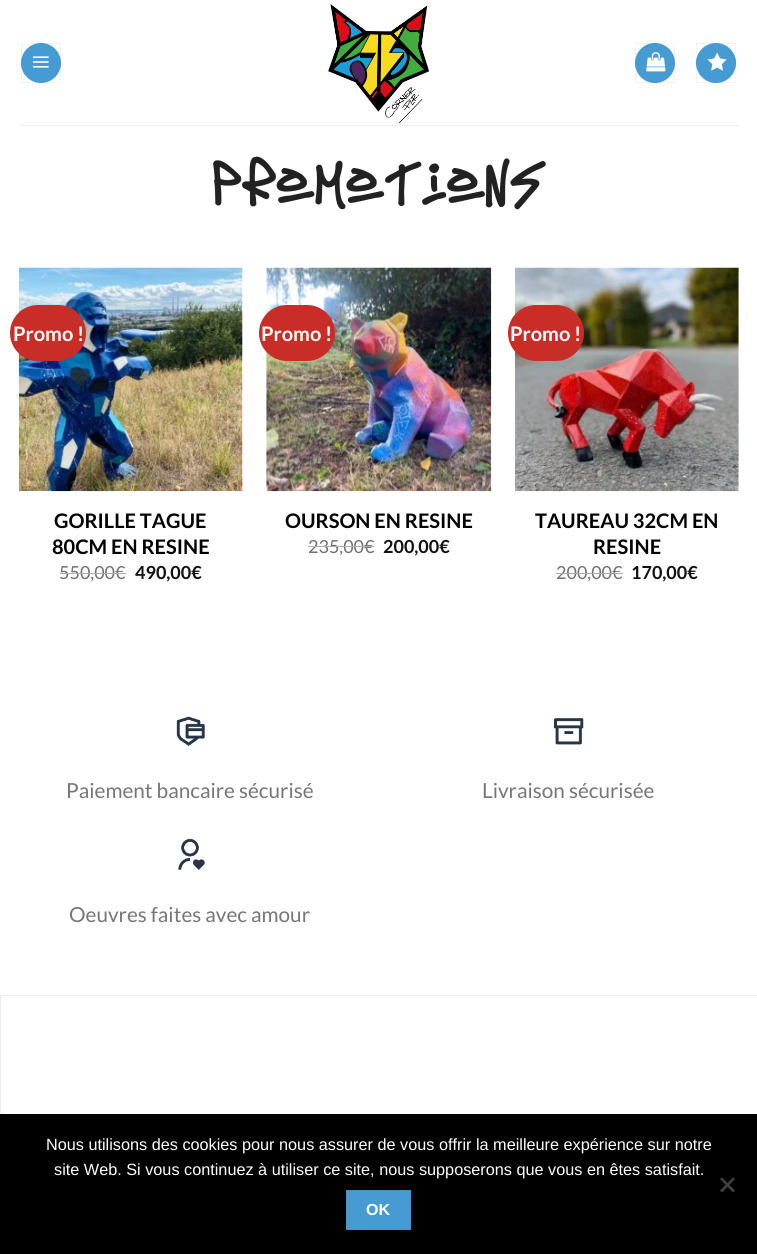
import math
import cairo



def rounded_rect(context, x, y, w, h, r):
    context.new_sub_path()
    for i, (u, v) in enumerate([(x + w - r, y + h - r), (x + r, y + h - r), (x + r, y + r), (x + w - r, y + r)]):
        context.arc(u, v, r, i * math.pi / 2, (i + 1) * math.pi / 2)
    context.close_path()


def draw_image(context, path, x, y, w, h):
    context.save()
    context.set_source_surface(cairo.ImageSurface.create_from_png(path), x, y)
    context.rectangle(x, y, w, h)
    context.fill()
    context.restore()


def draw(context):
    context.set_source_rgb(1, 1, 1)
    context.paint()
    context.set_source_rgb(71 / 255, 155 / 255, 211 / 255)
    context.arc(41, 63, 20, 0, 2 * math.pi)
    context.fill()
    context.rectangle(21.5, 43.5, 39, 39)
    context.set_source_rgba(0, 0, 0, 0.05)
    context.set_line_width(1)
    context.stroke()
    draw_image(context, "images/1.png", 32, 56, 17, 12)
    draw_image(context, "images/2.png", 328, 4, 101, 120)
    context.set_source_rgb(71 / 255, 155 / 255, 211 / 255)
    context.arc(655, 63, 20, 0, 2 * math.pi)
    context.fill()
    context.rectangle(635.5, 43.5, 39, 39)
    context.set_source_rgba(0, 0, 0, 0.05)
    context.stroke()
    draw_image(context, "images/3.png", 646, 52, 20, 20)
    context.set_source_rgb(71 / 255, 155 / 255, 211 / 255)
    context.arc(716, 63, 20, 0, 2 * math.pi)
    context.fill()
    context.rectangle(696.5, 43.5, 39, 39)
    context.set_source_rgba(0, 0, 0, 0.05)
    context.stroke()
    draw_image(context, "images/4.png", 707, 52, 20, 19)
    context.set_source_rgb(241 / 255, 241 / 255, 241 / 255)
    context.rectangle(19, 125, 720, 1)
    context.fill()
    draw_image(context, "images/5.png", 18, 267, 225, 225)
    context.set_source_rgb(200 / 255, 46 / 255, 39 / 255)
    rounded_rect(context, 10, 305, 76, 56, 28)
    context.fill()
    draw_image(context, "images/6.png", 266, 267, 226, 225)
    rounded_rect(context, 259, 305, 76, 56, 28)
    context.fill()
    draw_image(context, "images/7.png", 515, 267, 224, 225)
    rounded_rect(context, 508, 305, 76, 56, 28)
    context.fill()
    draw_image(context, "images/8.png", 176, 716, 29, 30)
    draw_image(context, "images/9.png", 554, 718, 30, 27)
    draw_image(context, "images/10.png", 178, 838, 27, 32)
    context.rectangle(0.5, 995.5, 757, 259)
    context.set_source_rgb(236 / 255, 236 / 255, 236 / 255)
    context.stroke()
    context.set_source_rgb(0, 0, 0)
    context.rectangle(0, 1114, 757, 140)
    context.fill()
    context.set_source_rgb(64 / 255, 64 / 255, 64 / 255)
    context.new_path()
    context.move_to(733, 1177.5)
    context.line_to(735, 1179)
    context.line_to(722, 1192.5)
    context.line_to(720, 1190.5)
    context.close_path()
    context.fill()
    context.new_path()
    context.move_to(720, 1179)
    context.line_to(722, 1177.5)
    context.line_to(735, 1190.5)
    context.line_to(733, 1192.5)
    context.close_path()
    context.fill()
    context.set_source_rgb(71 / 255, 155 / 255, 211 / 255)
    context.rectangle(346.5, 1190.5, 64, 39)
    context.fill_preserve()
    context.set_source_rgb(67 / 255, 147 / 255, 200 / 255)
    context.stroke()
    context.select_font_face("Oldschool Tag", cairo.FontSlant.NORMAL, cairo.FontWeight.BOLD)
    context.set_font_size(46)
    context.set_source_rgb(34 / 255, 34 / 255, 34 / 255)
    context.move_to(212, 204)
    context.show_text("Promotions")
    context.select_font_face("Lato", cairo.FontSlant.NORMAL, cairo.FontWeight.BOLD)
    context.set_font_size(20)
    context.set_source_rgb(1, 1, 1)
    context.move_to(13, 341)
    context.show_text("Promo !")
    context.set_source_rgb(0, 0, 0)
    context.move_to(54, 528)
    context.show_text("GORILLE TAGUE")
    context.move_to(52, 554)
    context.show_text("80CM EN RESINE")
    context.select_font_face("Lato")
    context.set_font_size(18)
    context.set_source_rgb(112 / 255, 112 / 255, 112 / 255)
    context.move_to(59, 579)
    context.show_text("550,00€")
    context.set_source_rgb(173 / 255, 173 / 255, 173 / 255)
    context.rectangle(60, 573, 66, 1)
    context.fill()
    context.select_font_face("Lato", cairo.FontSlant.NORMAL, cairo.FontWeight.BOLD)
    context.set_source_rgb(17 / 255, 17 / 255, 17 / 255)
    context.move_to(135, 579)
    context.show_text("490,00€")
    context.set_font_size(20)
    context.set_source_rgb(1, 1, 1)
    context.move_to(261, 341)
    context.show_text("Promo !")
    context.set_source_rgb(0, 0, 0)
    context.move_to(285, 528)
    context.show_text("OURSON EN RESINE")
    context.select_font_face("Lato")
    context.set_font_size(18)
    context.set_source_rgb(112 / 255, 112 / 255, 112 / 255)
    context.move_to(308, 553)
    context.show_text("235,00€")
    context.set_source_rgb(173 / 255, 173 / 255, 173 / 255)
    context.rectangle(308, 546, 66, 1)
    context.fill()
    context.select_font_face("Lato", cairo.FontSlant.NORMAL, cairo.FontWeight.BOLD)
    context.set_source_rgb(17 / 255, 17 / 255, 17 / 255)
    context.move_to(383, 553)
    context.show_text("200,00€")
    context.set_font_size(20)
    context.set_source_rgb(1, 1, 1)
    context.move_to(510, 341)
    context.show_text("Promo !")
    context.set_source_rgb(0, 0, 0)
    context.move_to(535, 528)
    context.show_text("TAUREAU 32CM EN")
    context.move_to(593, 554)
    context.show_text("RESINE")
    context.select_font_face("Lato")
    context.set_font_size(18)
    context.set_source_rgb(112 / 255, 112 / 255, 112 / 255)
    context.move_to(556, 579)
    context.show_text("200,00")
    context.set_source_rgb(173 / 255, 173 / 255, 173 / 255)
    context.rectangle(556, 573, 57, 1)
    context.fill()
    context.set_source_rgb(112 / 255, 112 / 255, 112 / 255)
    context.move_to(612, 579)
    context.show_text("€")
    context.set_source_rgb(173 / 255, 173 / 255, 173 / 255)
    context.rectangle(613, 573, 10, 1)
    context.fill()
    context.select_font_face("Lato", cairo.FontSlant.NORMAL, cairo.FontWeight.BOLD)
    context.set_source_rgb(17 / 255, 17 / 255, 17 / 255)
    context.move_to(631, 579)
    context.show_text("170,00€")
    context.select_font_face("Lato")
    context.set_font_size(20.75)
    context.set_source_rgb(119 / 255, 119 / 255, 119 / 255)
    context.move_to(66, 798)
    context.show_text("Paiement bancaire sécurisé")
    context.move_to(482, 798)
    context.show_text("Livraison sécurisée")
    context.move_to(69, 922)
    context.show_text("Oeuvres faites avec amour")
    context.select_font_face("Liberation Sans")
    context.set_font_size(16.25)
    context.set_source_rgb(1, 1, 1)
    context.move_to(46, 1150)
    context.show_text("Nous utilisons des cookies pour nous assurer de vous offrir la meilleure expérience sur notre")
    context.move_to(54, 1175)
    context.show_text("site Web. Si vous continuez à utiliser ce site, nous supposerons que vous en êtes satisfait.")
    context.select_font_face("Liberation Sans", cairo.FontSlant.NORMAL, cairo.FontWeight.BOLD)
    context.set_font_size(16)
    context.move_to(366, 1215)
    context.show_text("OK")


surface = cairo.ImageSurface(cairo.Format.RGB24, 757, 1254)
context = cairo.Context(surface)
options = cairo.FontOptions()
options.set_hint_metrics(cairo.HintMetrics.OFF)
options.set_hint_style(cairo.HintStyle.NONE)
context.set_font_options(options)
context.set_miter_limit(4)
draw(context)
surface.write_to_png("out.png")
